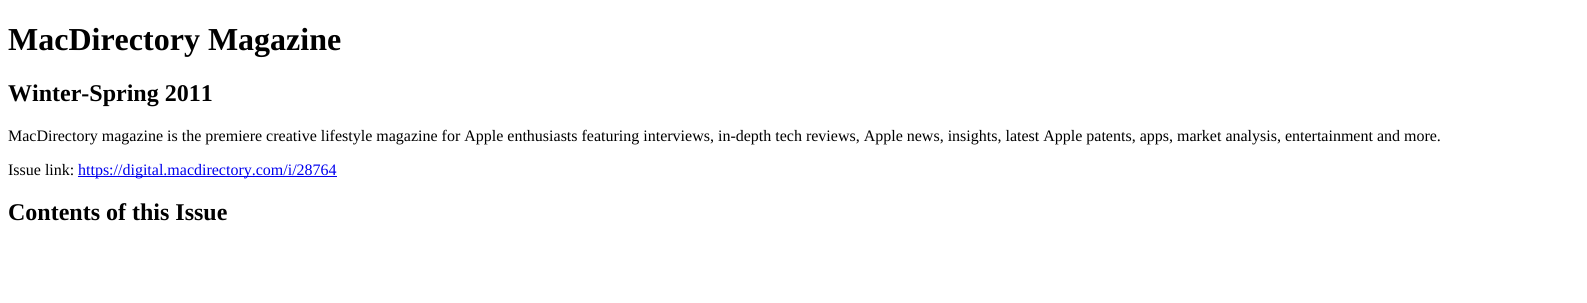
import math
import cairo



def draw(context):
    context.set_source_rgb(1, 1, 1)
    context.paint()
    context.set_source_rgb(0, 0, 238 / 255)
    context.rectangle(78, 176, 259, 1)
    context.fill()
    context.select_font_face("Liberation Serif", cairo.FontSlant.NORMAL, cairo.FontWeight.BOLD)
    context.set_font_size(32)
    context.set_source_rgb(0, 0, 0)
    context.move_to(8, 50)
    context.show_text("MacDirectory Magazine")
    context.set_font_size(24)
    context.move_to(8, 101)
    context.show_text("Winter-Spring 2011")
    context.select_font_face("Liberation Serif")
    context.set_font_size(16)
    context.move_to(8, 141)
    context.show_text("MacDirectory magazine is the premiere creative lifestyle magazine for Apple enthusiasts featuring interviews, in-depth tech reviews, Apple news, insights, latest Apple patents, apps, market analysis, entertainment and more.")
    context.move_to(8, 175)
    context.show_text("Issue link:")
    context.set_source_rgb(0, 0, 238 / 255)
    context.move_to(78, 175)
    context.show_text("https://digital.macdirectory.com/i/28764")
    context.select_font_face("Liberation Serif", cairo.FontSlant.NORMAL, cairo.FontWeight.BOLD)
    context.set_font_size(24)
    context.set_source_rgb(0, 0, 0)
    context.move_to(8, 220)
    context.show_text("Contents of this Issue")


surface = cairo.ImageSurface(cairo.Format.RGB24, 1587, 303)
context = cairo.Context(surface)
options = cairo.FontOptions()
options.set_hint_metrics(cairo.HintMetrics.OFF)
options.set_hint_style(cairo.HintStyle.NONE)
context.set_font_options(options)
context.set_miter_limit(4)
draw(context)
surface.write_to_png("out.png")
